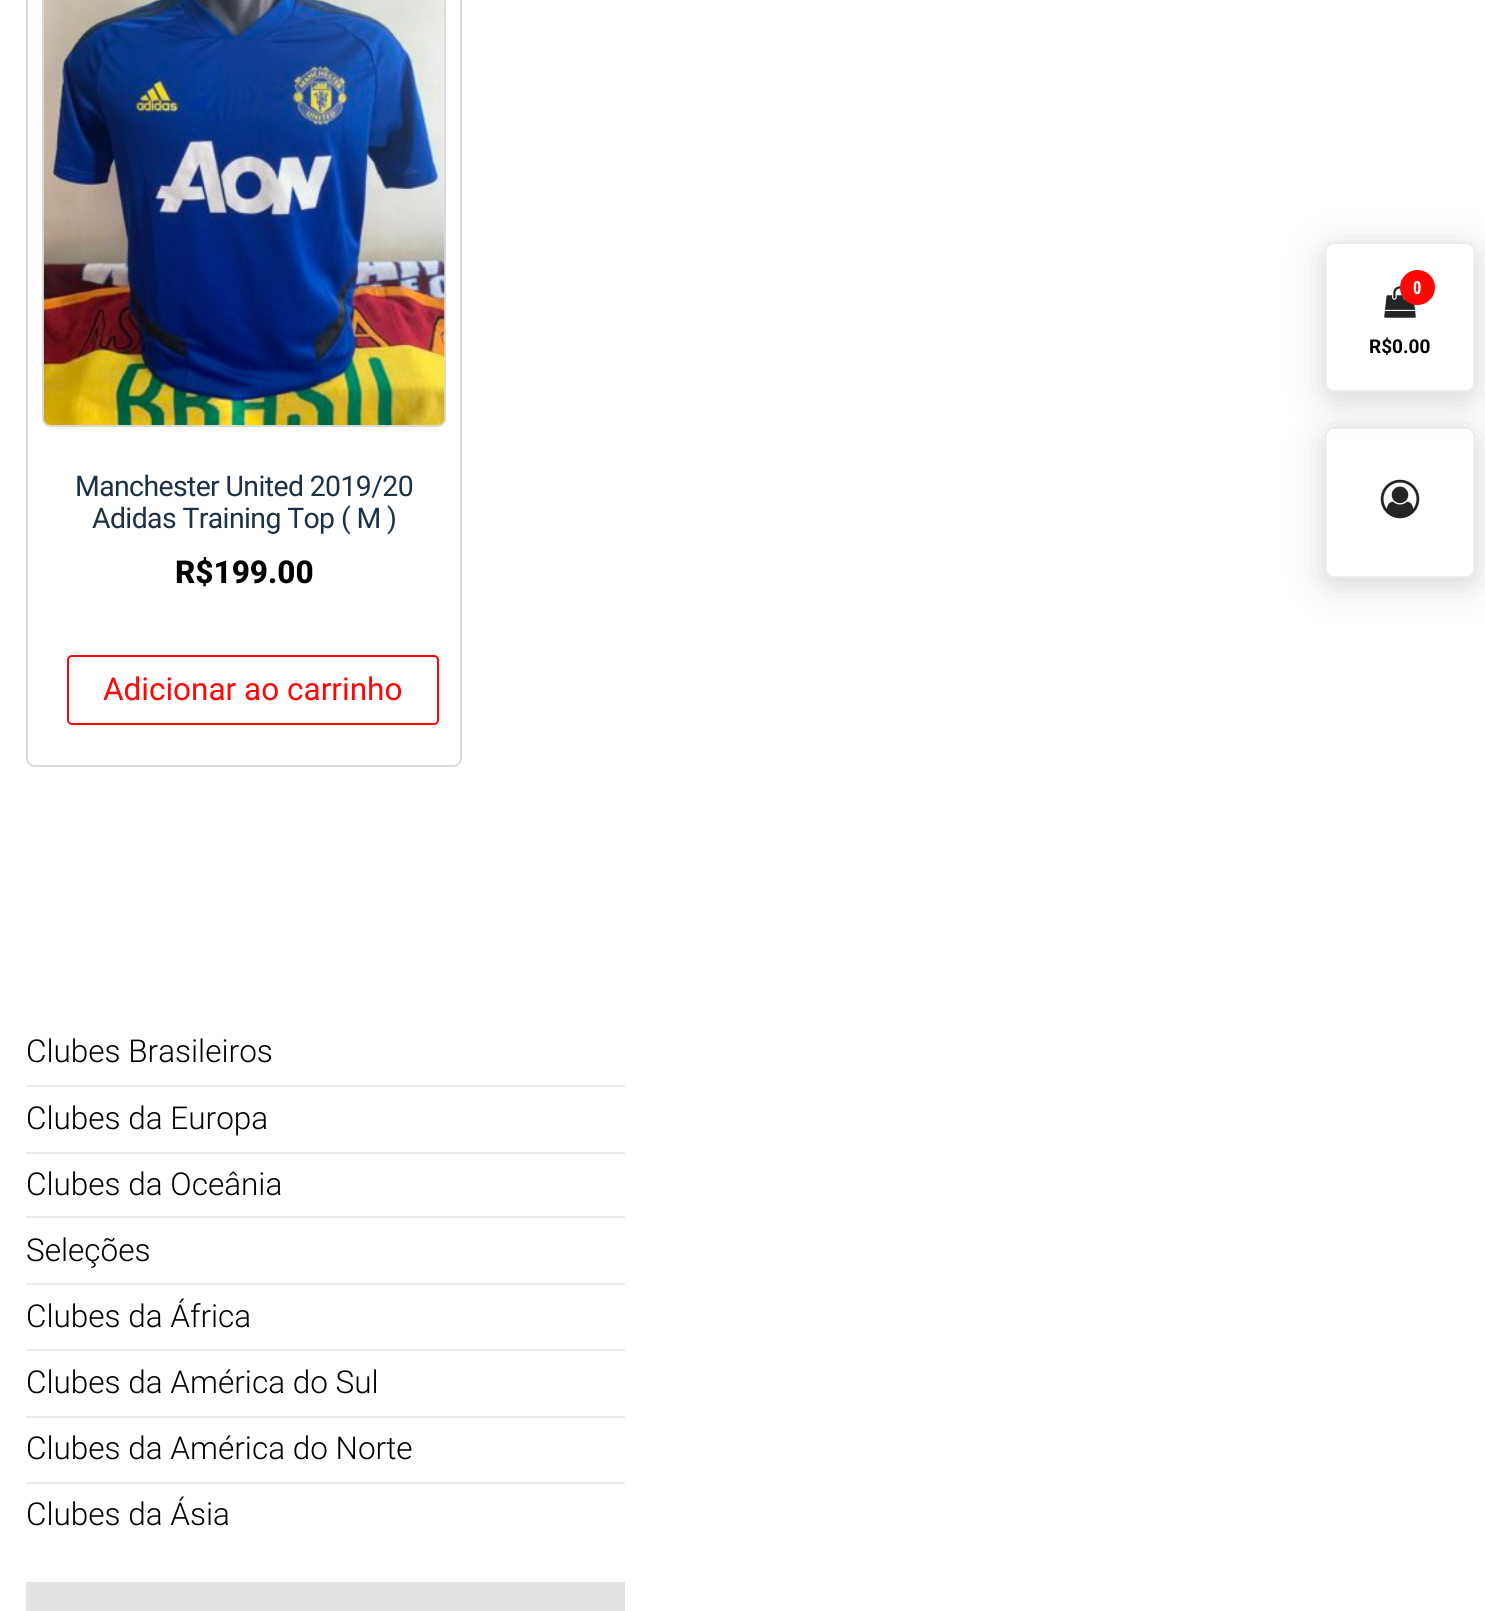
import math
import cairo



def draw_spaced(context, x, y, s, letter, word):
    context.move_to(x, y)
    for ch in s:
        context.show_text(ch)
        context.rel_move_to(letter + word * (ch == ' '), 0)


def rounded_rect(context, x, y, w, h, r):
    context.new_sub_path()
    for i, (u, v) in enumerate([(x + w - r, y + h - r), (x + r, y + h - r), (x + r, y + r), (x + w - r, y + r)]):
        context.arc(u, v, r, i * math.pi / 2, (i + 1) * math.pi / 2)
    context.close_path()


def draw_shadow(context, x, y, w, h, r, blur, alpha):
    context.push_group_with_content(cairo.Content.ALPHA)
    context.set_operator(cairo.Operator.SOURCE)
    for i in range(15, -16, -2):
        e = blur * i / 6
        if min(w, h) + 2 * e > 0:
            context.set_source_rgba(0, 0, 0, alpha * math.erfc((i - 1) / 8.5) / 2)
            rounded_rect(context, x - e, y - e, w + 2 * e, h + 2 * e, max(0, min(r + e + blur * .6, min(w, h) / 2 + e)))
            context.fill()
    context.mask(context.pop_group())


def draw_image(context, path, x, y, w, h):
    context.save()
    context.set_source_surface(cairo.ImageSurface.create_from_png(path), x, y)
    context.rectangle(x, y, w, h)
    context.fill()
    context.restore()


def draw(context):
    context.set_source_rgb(1, 1, 1)
    context.paint()
    context.set_source_rgb(0, 0, 0)
    draw_shadow(context, 1325, 434, 150, 151, 9, 17.5, 0.17)
    context.set_source_rgb(1, 1, 1)
    rounded_rect(context, 1326, 428, 148, 149, 8)
    context.fill_preserve()
    context.set_source_rgb(237 / 255, 237 / 255, 237 / 255)
    context.stroke()
    context.set_source_rgb(0, 0, 0)
    draw_shadow(context, 1325, 249, 150, 150, 9, 17.5, 0.17)
    context.set_source_rgb(1, 1, 1)
    rounded_rect(context, 1326, 243, 148, 148, 8)
    context.fill_preserve()
    context.set_source_rgb(237 / 255, 237 / 255, 237 / 255)
    context.stroke()
    draw_image(context, "images/1.png", 1384, 286, 32, 32)
    context.set_source_rgb(1, 7 / 255, 7 / 255)
    context.arc(1417.5, 287.5, 17.5, 0, 2 * math.pi)
    context.fill()
    draw_image(context, "images/2.png", 1380, 479, 40, 40)
    rounded_rect(context, 27, -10, 434, 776, 8)
    context.set_source_rgb(217 / 255, 217 / 255, 217 / 255)
    context.stroke()
    rounded_rect(context, 43, -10, 402, 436, 8)
    context.stroke()
    draw_image(context, "images/3.png", 43, 0, 402, 425)
    rounded_rect(context, 68, 656, 370, 68, 4)
    context.set_source_rgb(1, 7 / 255, 7 / 255)
    context.stroke()
    context.set_source_rgb(235 / 255, 235 / 255, 235 / 255)
    context.rectangle(26, 1085, 599, 2)
    context.fill()
    context.rectangle(26, 1152, 599, 2)
    context.fill()
    context.rectangle(26, 1216, 599, 2)
    context.fill()
    context.rectangle(26, 1283, 599, 2)
    context.fill()
    context.rectangle(26, 1349, 599, 2)
    context.fill()
    context.rectangle(26, 1416, 599, 2)
    context.fill()
    context.rectangle(26, 1482, 599, 2)
    context.fill()
    context.set_source_rgb(226 / 255, 226 / 255, 226 / 255)
    context.rectangle(26, 1582, 599, 29)
    context.fill()
    context.select_font_face("Open Sans Condensed", cairo.FontSlant.NORMAL, cairo.FontWeight.BOLD)
    context.set_font_size(18)
    context.set_source_rgb(1, 1, 1)
    context.move_to(1413, 294)
    context.show_text("0")
    context.select_font_face("Roboto", cairo.FontSlant.NORMAL, cairo.FontWeight.BOLD)
    context.set_font_size(19)
    context.set_source_rgb(0, 0, 0)
    context.move_to(1369, 353)
    context.show_text("R$0.00")
    context.select_font_face("Roboto")
    context.set_font_size(28.4)
    context.set_source_rgb(28 / 255, 49 / 255, 70 / 255)
    draw_spaced(context, 75, 496, "Manchester United 2019/20", -0.6, 0)
    draw_spaced(context, 92, 528, "Adidas Training Top ( M )", -0.6, 0)
    context.select_font_face("Roboto ExtraBold")
    context.set_font_size(31.5)
    context.set_source_rgb(0, 0, 0)
    context.move_to(175, 583)
    context.show_text("R$199.00")
    context.select_font_face("Roboto")
    context.set_source_rgb(1, 7 / 255, 7 / 255)
    context.move_to(103, 700)
    context.show_text("Adicionar ao carrinho")
    context.select_font_face("Roboto Light")
    context.set_source_rgb(0, 0, 0)
    context.move_to(26, 1062)
    context.show_text("Clubes Brasileiros")
    context.move_to(26, 1129)
    context.show_text("Clubes da Europa")
    context.move_to(26, 1195)
    context.show_text("Clubes da Oceânia")
    context.move_to(26, 1261)
    context.show_text("Seleções")
    context.move_to(26, 1327)
    context.show_text("Clubes da África")
    context.move_to(26, 1393)
    context.show_text("Clubes da América do Sul")
    context.move_to(26, 1459)
    context.show_text("Clubes da América do Norte")
    context.move_to(26, 1525)
    context.show_text("Clubes da Ásia")


surface = cairo.ImageSurface(cairo.Format.RGB24, 1485, 1611)
context = cairo.Context(surface)
options = cairo.FontOptions()
options.set_hint_metrics(cairo.HintMetrics.OFF)
options.set_hint_style(cairo.HintStyle.NONE)
context.set_font_options(options)
context.set_miter_limit(4)
draw(context)
surface.write_to_png("out.png")
